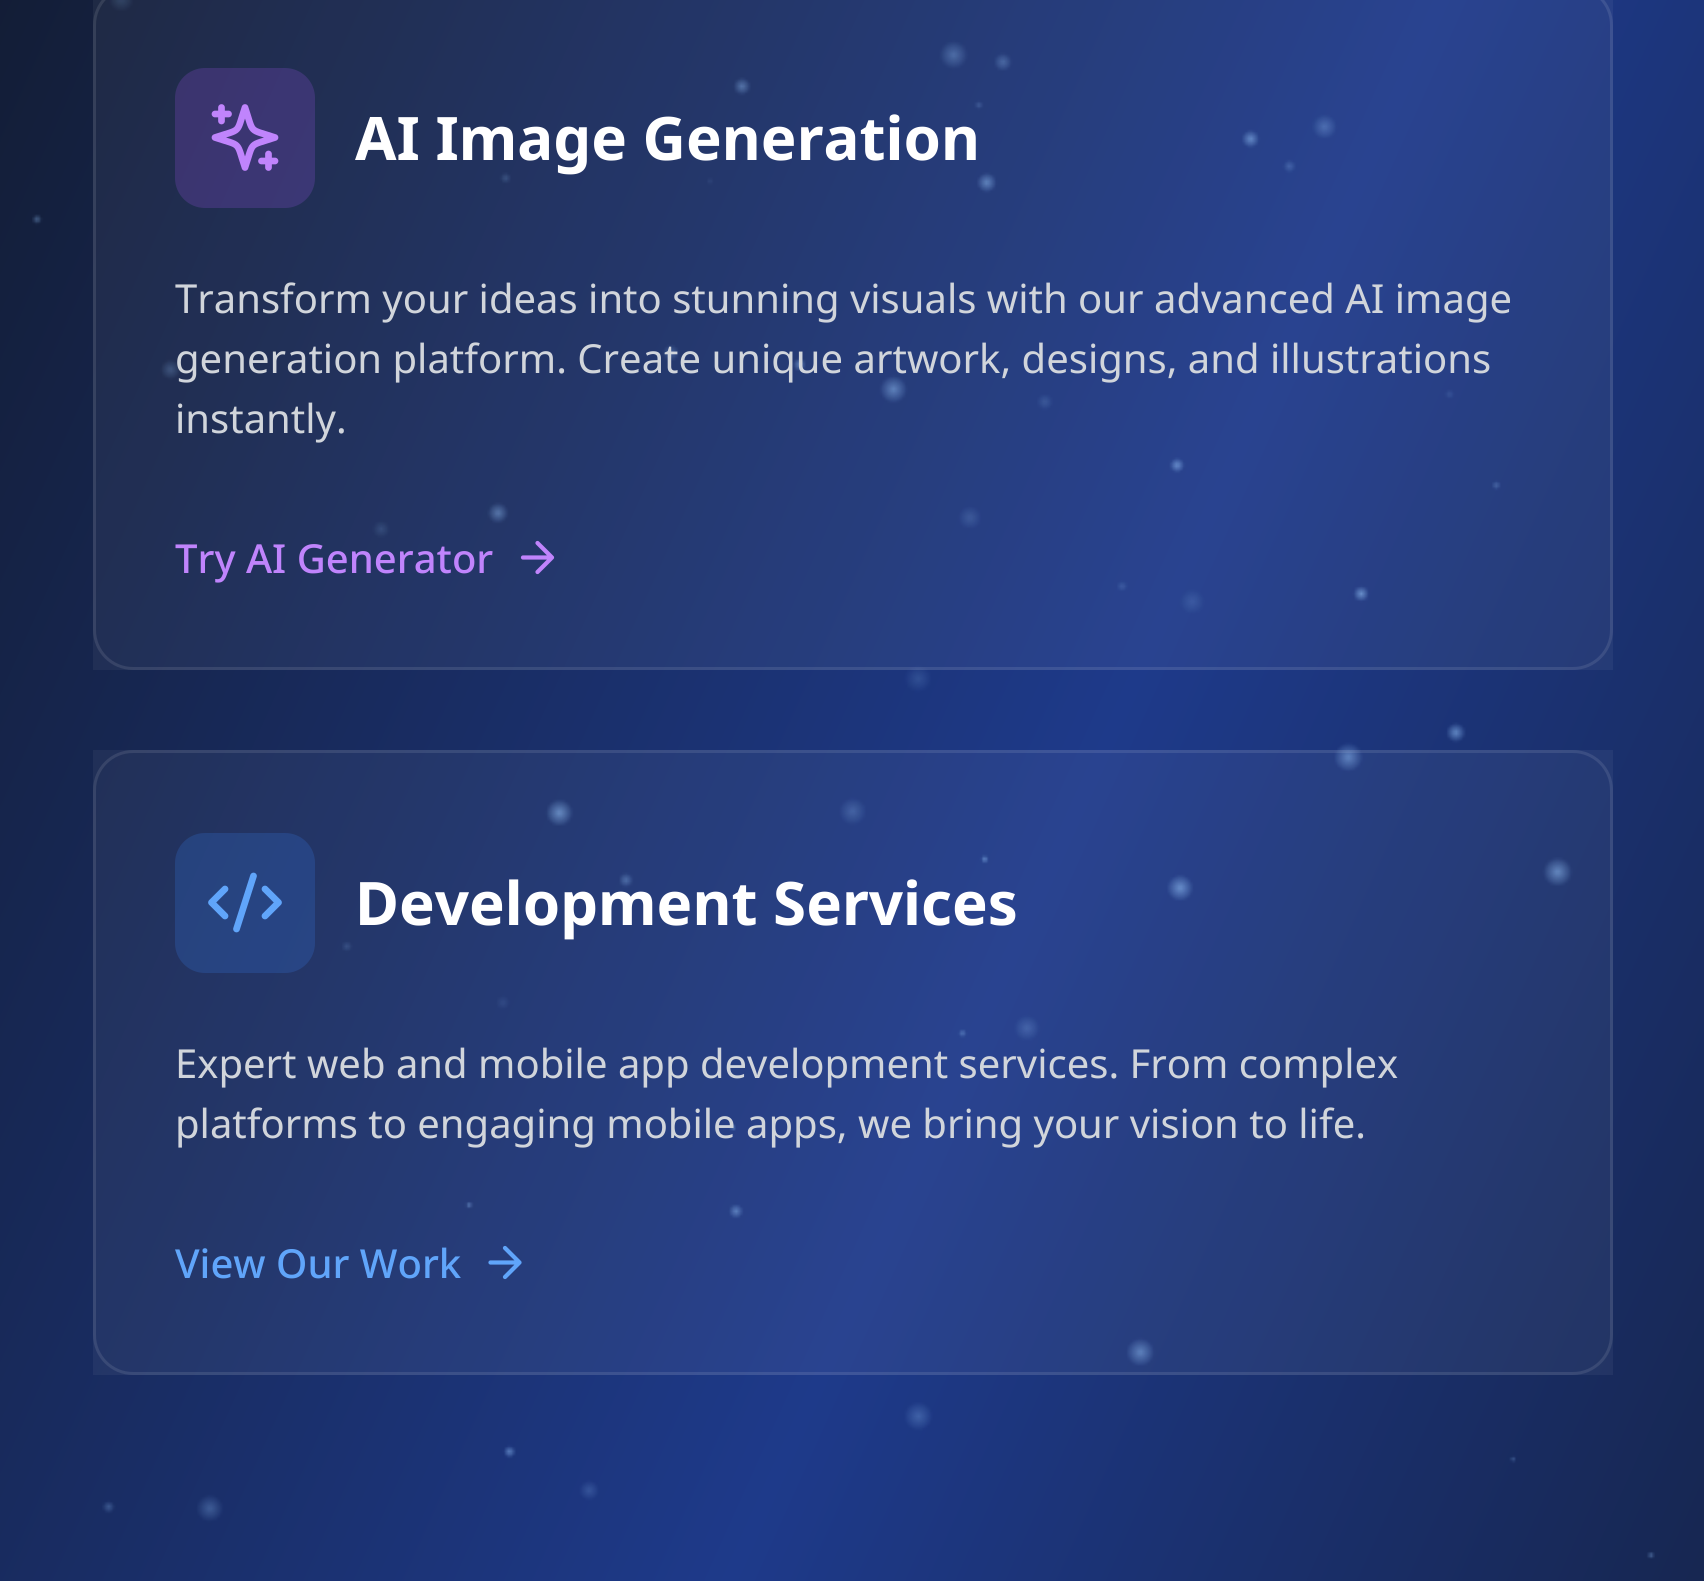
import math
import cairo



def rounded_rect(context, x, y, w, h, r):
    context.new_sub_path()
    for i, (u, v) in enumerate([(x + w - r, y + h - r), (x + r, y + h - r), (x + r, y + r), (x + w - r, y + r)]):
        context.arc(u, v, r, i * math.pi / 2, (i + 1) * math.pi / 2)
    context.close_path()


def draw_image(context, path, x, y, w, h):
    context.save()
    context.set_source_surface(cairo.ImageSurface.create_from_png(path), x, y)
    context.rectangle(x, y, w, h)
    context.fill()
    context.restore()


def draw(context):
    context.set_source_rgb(1, 1, 1)
    context.paint()
    gradient = cairo.LinearGradient(-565, 669, 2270, 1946)
    gradient.add_color_stop_rgba(0, 17 / 255, 24 / 255, 39 / 255, 1)
    gradient.add_color_stop_rgba(0.5, 30 / 255, 58 / 255, 138 / 255, 1)
    gradient.add_color_stop_rgba(1, 17 / 255, 24 / 255, 39 / 255, 1)
    context.set_source(gradient)
    context.rectangle(0, 0, 1704, 1581)
    context.fill()
    draw_image(context, "images/1.png", 32, 0, 1623, 1559)
    context.set_source_rgba(1, 1, 1, 0.05)
    context.rectangle(93, 0, 1520, 670)
    context.fill()
    rounded_rect(context, 94.5, -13.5, 1517, 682, 38.5)
    context.set_source_rgba(1, 1, 1, 0.1)
    context.set_line_width(3)
    context.stroke()
    context.set_source_rgba(168 / 255, 85 / 255, 247 / 255, 0.2)
    rounded_rect(context, 175, 68, 140, 140, 30)
    context.fill()
    context.new_path()
    context.move_to(245, 107.5)
    context.curve_to(236, 134.5, 242, 128.5, 215, 137.5)
    context.curve_to(242, 146.5, 236, 140.5, 245, 167.5)
    context.curve_to(254, 140.5, 248, 146.5, 275, 137.5)
    context.curve_to(248, 128.5, 254, 134.5, 245, 107.5)
    context.close_path()
    context.set_source_rgb(192 / 255, 132 / 255, 252 / 255)
    context.set_line_width(6.7)
    context.set_line_cap(cairo.LineCap.ROUND)
    context.set_line_join(cairo.LineJoin.ROUND)
    context.stroke()
    context.new_path()
    context.move_to(221.5, 107.5)
    context.line_to(221.5, 121)
    context.stroke()
    context.new_path()
    context.move_to(268.5, 154)
    context.line_to(268.5, 167.5)
    context.move_to(215, 114)
    context.line_to(228.5, 114)
    context.stroke()
    context.new_path()
    context.move_to(261.5, 161)
    context.line_to(275, 161)
    context.stroke()
    context.new_path()
    context.move_to(523, 557.5)
    context.line_to(552, 557.5)
    context.move_to(537.5, 543)
    context.line_to(552, 557.5)
    context.line_to(537.5, 572)
    context.set_line_width(4.2)
    context.stroke()
    context.set_source_rgba(1, 1, 1, 0.05)
    context.rectangle(93, 750, 1520, 625)
    context.fill()
    rounded_rect(context, 94.5, 751.5, 1517, 622, 38.5)
    context.set_source_rgba(1, 1, 1, 0.1)
    context.set_line_width(3)
    context.set_line_cap(cairo.LineCap.BUTT)
    context.set_line_join(cairo.LineJoin.MITER)
    context.stroke()
    context.set_source_rgba(59 / 255, 130 / 255, 246 / 255, 0.2)
    rounded_rect(context, 175, 833, 140, 140, 30)
    context.fill()
    context.new_path()
    context.move_to(265, 916)
    context.line_to(278.5, 902.5)
    context.line_to(265, 889)
    context.set_source_rgb(96 / 255, 165 / 255, 250 / 255)
    context.set_line_width(6.7)
    context.set_line_cap(cairo.LineCap.ROUND)
    context.set_line_join(cairo.LineJoin.ROUND)
    context.stroke()
    context.new_path()
    context.move_to(225, 889)
    context.line_to(211.5, 902.5)
    context.line_to(225, 916)
    context.move_to(253.5, 876)
    context.line_to(236.5, 929)
    context.stroke()
    context.new_path()
    context.move_to(490.5, 1262.5)
    context.line_to(519.5, 1262.5)
    context.move_to(505, 1248)
    context.line_to(519.5, 1262.5)
    context.line_to(505, 1277)
    context.set_line_width(4.2)
    context.stroke()
    context.select_font_face("Noto Sans", cairo.FontSlant.NORMAL, cairo.FontWeight.BOLD)
    context.set_font_size(60)
    context.set_source_rgb(1, 1, 1)
    context.move_to(355, 160)
    context.show_text("AI Image Generation")
    context.select_font_face("Noto Sans")
    context.set_font_size(40)
    context.set_source_rgb(209 / 255, 213 / 255, 219 / 255)
    context.move_to(175, 313)
    context.show_text("Transform your ideas into stunning visuals with our advanced AI image")
    context.move_to(175, 373)
    context.show_text("generation platform. Create unique artwork, designs, and illustrations")
    context.move_to(175, 433)
    context.show_text("instantly.")
    context.select_font_face("Noto Sans Medium")
    context.set_source_rgb(192 / 255, 132 / 255, 252 / 255)
    context.move_to(175, 573)
    context.show_text("Try AI Generator")
    context.select_font_face("Noto Sans", cairo.FontSlant.NORMAL, cairo.FontWeight.BOLD)
    context.set_font_size(60)
    context.set_source_rgb(1, 1, 1)
    context.move_to(355, 925)
    context.show_text("Development Services")
    context.select_font_face("Noto Sans")
    context.set_font_size(40)
    context.set_source_rgb(209 / 255, 213 / 255, 219 / 255)
    context.move_to(175, 1078)
    context.show_text("Expert web and mobile app development services. From complex")
    context.move_to(175, 1138)
    context.show_text("platforms to engaging mobile apps, we bring your vision to life.")
    context.select_font_face("Noto Sans Medium")
    context.set_source_rgb(96 / 255, 165 / 255, 250 / 255)
    context.move_to(175, 1278)
    context.show_text("View Our Work")


surface = cairo.ImageSurface(cairo.Format.RGB24, 1704, 1581)
context = cairo.Context(surface)
options = cairo.FontOptions()
options.set_hint_metrics(cairo.HintMetrics.OFF)
options.set_hint_style(cairo.HintStyle.NONE)
context.set_font_options(options)
context.set_miter_limit(4)
draw(context)
surface.write_to_png("out.png")
